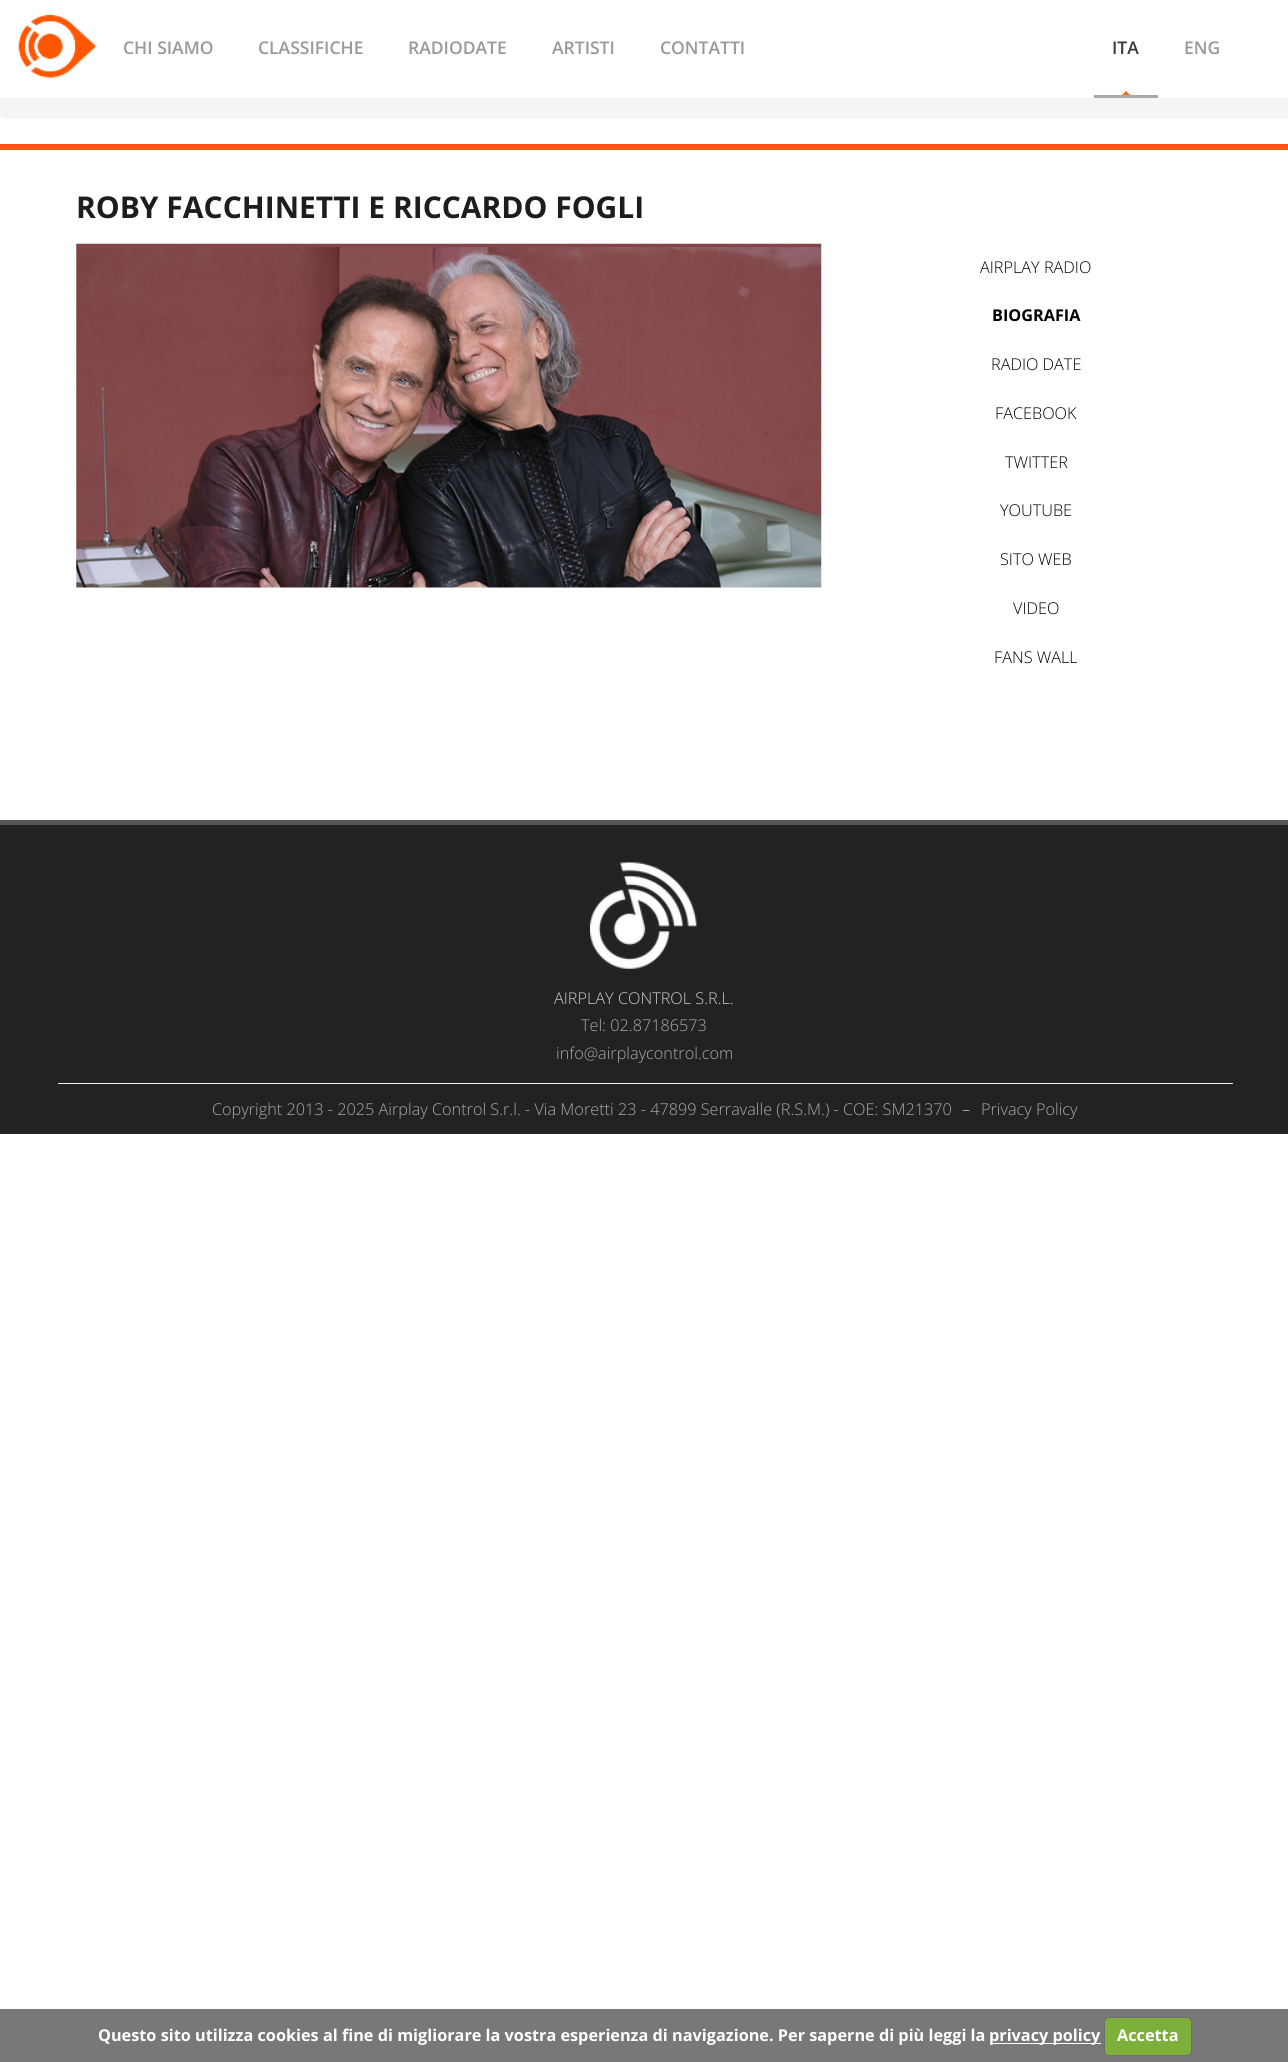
import math
import cairo



def rounded_rect(context, x, y, w, h, r):
    context.new_sub_path()
    for i, (u, v) in enumerate([(x + w - r, y + h - r), (x + r, y + h - r), (x + r, y + r), (x + w - r, y + r)]):
        context.arc(u, v, r, i * math.pi / 2, (i + 1) * math.pi / 2)
    context.close_path()


def draw_shadow(context, x, y, w, h, r, blur, alpha):
    context.push_group_with_content(cairo.Content.ALPHA)
    context.set_operator(cairo.Operator.SOURCE)
    for i in range(15, -16, -2):
        e = blur * i / 6
        if min(w, h) + 2 * e > 0:
            context.set_source_rgba(0, 0, 0, alpha * math.erfc((i - 1) / 8.5) / 2)
            rounded_rect(context, x - e, y - e, w + 2 * e, h + 2 * e, max(0, min(r + e + blur * .6, min(w, h) / 2 + e)))
            context.fill()
    context.mask(context.pop_group())


def draw_image(context, path, x, y, w, h):
    context.save()
    context.set_source_surface(cairo.ImageSurface.create_from_png(path), x, y)
    context.rectangle(x, y, w, h)
    context.fill()
    context.restore()


def draw(context):
    context.set_source_rgb(1, 1, 1)
    context.paint()
    context.set_source_rgb(245 / 255, 245 / 255, 245 / 255)
    rounded_rect(context, 0, 78, 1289, 41, 5)
    context.fill()
    context.set_source_rgb(1, 1, 1)
    context.rectangle(0, 78, 1288, 20)
    context.fill()
    draw_image(context, "images/1.png", 18, 15, 79, 63)
    context.set_source_rgb(169 / 255, 169 / 255, 169 / 255)
    context.rectangle(1094, 95, 64, 3)
    context.fill()
    context.save()
    context.rectangle(1094, 0, 64, 95)
    context.clip()
    context.set_source_rgb(243 / 255, 101 / 255, 16 / 255)
    context.new_path()
    context.move_to(1126, 91)
    context.line_to(1130.5, 95.5)
    context.line_to(1126, 100)
    context.line_to(1121.5, 95.5)
    context.close_path()
    context.fill()
    context.restore()
    context.set_source_rgb(254 / 255, 87 / 255, 23 / 255)
    context.rectangle(0, 144, 1288, 6)
    context.fill()
    draw_image(context, "images/2.png", 76, 243, 746, 345)
    context.set_source_rgb(34 / 255, 34 / 255, 34 / 255)
    context.rectangle(0, 825, 1288, 309)
    context.fill()
    context.set_source_rgb(85 / 255, 85 / 255, 85 / 255)
    context.rectangle(0, 820, 1288, 5)
    context.fill()
    draw_image(context, "images/3.png", 590, 862, 107, 107)
    context.set_source_rgb(238 / 255, 238 / 255, 238 / 255)
    context.rectangle(58, 1083, 1175, 1)
    context.fill()
    context.set_source_rgb(120 / 255, 120 / 255, 120 / 255)
    context.rectangle(0, 2009, 1288, 53)
    context.fill()
    context.set_source_rgb(1, 1, 1)
    context.rectangle(990, 2043, 111, 1)
    context.fill()
    context.set_source_rgb(0, 0, 0)
    draw_shadow(context, 1105, 2018, 86, 37, 4, 1, 0.25)
    context.set_source_rgb(125 / 255, 175 / 255, 59 / 255)
    rounded_rect(context, 1105, 2018, 86, 37, 4)
    context.fill()
    context.select_font_face("Open Sans SemiBold")
    context.set_font_size(17.5)
    context.set_source_rgb(153 / 255, 153 / 255, 153 / 255)
    context.move_to(123, 54)
    context.show_text("CHI SIAMO")
    context.move_to(258, 54)
    context.show_text("CLASSIFICHE")
    context.move_to(408, 54)
    context.show_text("RADIODATE")
    context.move_to(552, 54)
    context.show_text("ARTISTI")
    context.move_to(660, 54)
    context.show_text("CONTATTI")
    context.set_source_rgb(57 / 255, 57 / 255, 57 / 255)
    context.move_to(1112, 54)
    context.show_text("ITA")
    context.set_source_rgb(153 / 255, 153 / 255, 153 / 255)
    context.move_to(1184, 54)
    context.show_text("ENG")
    context.select_font_face("Open Sans", cairo.FontSlant.NORMAL, cairo.FontWeight.BOLD)
    context.set_font_size(30)
    context.set_source_rgb(29 / 255, 29 / 255, 27 / 255)
    context.move_to(76, 218)
    context.show_text("ROBY FACCHINETTI E RICCARDO FOGLI")
    context.select_font_face("Open Sans Light")
    context.set_font_size(16.25)
    context.set_source_rgb(0, 0, 0)
    context.move_to(980, 273)
    context.show_text("AIRPLAY RADIO")
    context.select_font_face("Open Sans", cairo.FontSlant.NORMAL, cairo.FontWeight.BOLD)
    context.move_to(992, 321)
    context.show_text("BIOGRAFIA")
    context.select_font_face("Open Sans Light")
    context.move_to(991, 370)
    context.show_text("RADIO DATE")
    context.move_to(995, 419)
    context.show_text("FACEBOOK")
    context.move_to(1005, 468)
    context.show_text("TWITTER")
    context.move_to(1000, 516)
    context.show_text("YOUTUBE")
    context.move_to(1000, 565)
    context.show_text("SITO WEB")
    context.move_to(1013, 614)
    context.show_text("VIDEO")
    context.move_to(994, 663)
    context.show_text("FANS WALL")
    context.set_source_rgb(204 / 255, 204 / 255, 204 / 255)
    context.move_to(554, 1004)
    context.show_text("AIRPLAY CONTROL S.R.L.")
    context.set_source_rgb(170 / 255, 170 / 255, 170 / 255)
    context.move_to(581, 1031)
    context.show_text("Tel: 02.87186573")
    context.move_to(556, 1059)
    context.show_text("info@airplaycontrol.com")
    context.move_to(212, 1115)
    context.show_text("Copyright 2013 - 2025 Airplay Control S.r.l. - Via Moretti 23 - 47899 Serravalle (R.S.M.) - COE: SM21370")
    context.set_source_rgb(204 / 255, 204 / 255, 204 / 255)
    context.move_to(962, 1115)
    context.show_text("–")
    context.set_source_rgb(170 / 255, 170 / 255, 170 / 255)
    context.move_to(981, 1115)
    context.show_text("Privacy Policy")
    context.select_font_face("Open Sans", cairo.FontSlant.NORMAL, cairo.FontWeight.BOLD)
    context.set_source_rgb(1, 1, 1)
    context.move_to(98, 2041)
    context.show_text("Questo sito utilizza cookies al fine di migliorare la vostra esperienza di navigazione. Per saperne di più leggi la")
    context.move_to(989, 2041)
    context.show_text("privacy policy")
    context.move_to(1117, 2041)
    context.show_text("Accetta")


surface = cairo.ImageSurface(cairo.Format.RGB24, 1288, 2062)
context = cairo.Context(surface)
options = cairo.FontOptions()
options.set_hint_metrics(cairo.HintMetrics.OFF)
options.set_hint_style(cairo.HintStyle.NONE)
context.set_font_options(options)
context.set_miter_limit(4)
draw(context)
surface.write_to_png("out.png")
